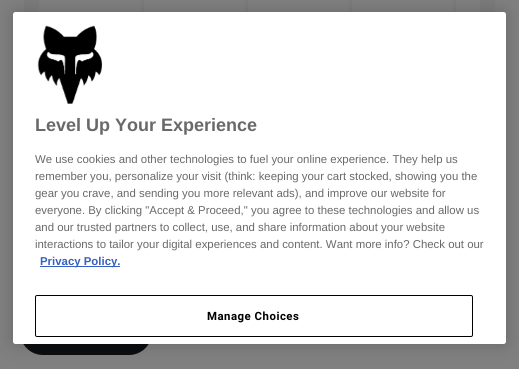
import math
import cairo



def draw_spaced(context, x, y, s, letter, word):
    context.move_to(x, y)
    for ch in s:
        context.show_text(ch)
        context.rel_move_to(letter + word * (ch == ' '), 0)


def rounded_rect(context, x, y, w, h, r):
    context.new_sub_path()
    for i, (u, v) in enumerate([(x + w - r, y + h - r), (x + r, y + h - r), (x + r, y + r), (x + w - r, y + r)]):
        context.arc(u, v, r, i * math.pi / 2, (i + 1) * math.pi / 2)
    context.close_path()


def draw_shadow(context, x, y, w, h, r, blur, alpha):
    context.push_group_with_content(cairo.Content.ALPHA)
    context.set_operator(cairo.Operator.SOURCE)
    for i in range(15, -16, -2):
        e = blur * i / 6
        if min(w, h) + 2 * e > 0:
            context.set_source_rgba(0, 0, 0, alpha * math.erfc((i - 1) / 8.5) / 2)
            rounded_rect(context, x - e, y - e, w + 2 * e, h + 2 * e, max(0, min(r + e + blur * .6, min(w, h) / 2 + e)))
            context.fill()
    context.mask(context.pop_group())


def draw_image(context, path, x, y, w, h):
    context.save()
    context.set_source_surface(cairo.ImageSurface.create_from_png(path), x, y)
    context.rectangle(x, y, w, h)
    context.fill()
    context.restore()


def draw(context):
    context.set_source_rgb(128 / 255, 128 / 255, 128 / 255)
    context.paint()
    context.set_source_rgb(124 / 255, 124 / 255, 124 / 255)
    context.rectangle(24, 0, 471, 12)
    context.fill()
    context.set_source_rgb(128 / 255, 128 / 255, 128 / 255)
    context.rectangle(39, 0, 102, 12)
    context.fill()
    context.rectangle(144, 0, 101, 12)
    context.fill()
    context.rectangle(248, 0, 101, 12)
    context.fill()
    context.rectangle(352, 0, 101, 12)
    context.fill()
    context.rectangle(456, 0, 24, 12)
    context.fill()
    context.set_source_rgb(12 / 255, 13 / 255, 14 / 255)
    rounded_rect(context, 20, 309, 132, 46, 23)
    context.fill()
    context.set_source_rgb(0, 0, 0)
    draw_shadow(context, 13, 12, 493, 332, 2.5, 9, 0.2)
    context.set_source_rgb(1, 1, 1)
    rounded_rect(context, 13, 12, 493, 332, 2.5)
    context.fill()
    draw_image(context, "images/1.png", 37, 25, 65, 79)
    context.set_source_rgb(56 / 255, 96 / 255, 190 / 255)
    context.rectangle(40, 266, 80, 1)
    context.fill()
    rounded_rect(context, 35.5, 295.5, 437, 41, 1.5)
    context.set_source_rgb(0, 0, 0)
    context.set_line_width(1)
    context.stroke()
    context.select_font_face("Liberation Sans", cairo.FontSlant.NORMAL, cairo.FontWeight.BOLD)
    context.set_font_size(18)
    context.set_source_rgb(105 / 255, 105 / 255, 105 / 255)
    context.move_to(35, 131)
    context.show_text("Level Up Your Experience")
    context.select_font_face("Liberation Sans")
    context.set_font_size(11.4)
    context.move_to(35, 163)
    context.show_text("We use cookies and other technologies to fuel your online experience. They help us")
    context.move_to(35, 180)
    context.show_text("remember you, personalize your visit (think: keeping your cart stocked, showing you the")
    context.move_to(35, 197)
    context.show_text("gear you crave, and sending you more relevant ads), and improve our website for")
    context.move_to(35, 214)
    context.show_text("everyone. By clicking \"Accept & Proceed,\" you agree to these technologies and allow us")
    context.move_to(35, 231)
    context.show_text("and our trusted partners to collect, use, and share information about your website")
    context.move_to(35, 248)
    context.show_text("interactions to tailor your digital experiences and content. Want more info? Check out our")
    context.select_font_face("Liberation Sans", cairo.FontSlant.NORMAL, cairo.FontWeight.BOLD)
    context.set_source_rgb(56 / 255, 96 / 255, 190 / 255)
    context.move_to(40, 265)
    context.show_text("Privacy Policy.")
    context.select_font_face("Roboto", cairo.FontSlant.NORMAL, cairo.FontWeight.BOLD)
    context.set_source_rgb(0, 0, 0)
    draw_spaced(context, 207, 320, "Manage Choices", 0.5, 0)


surface = cairo.ImageSurface(cairo.Format.RGB24, 519, 369)
context = cairo.Context(surface)
options = cairo.FontOptions()
options.set_hint_metrics(cairo.HintMetrics.OFF)
options.set_hint_style(cairo.HintStyle.NONE)
context.set_font_options(options)
context.set_miter_limit(4)
draw(context)
surface.write_to_png("out.png")
